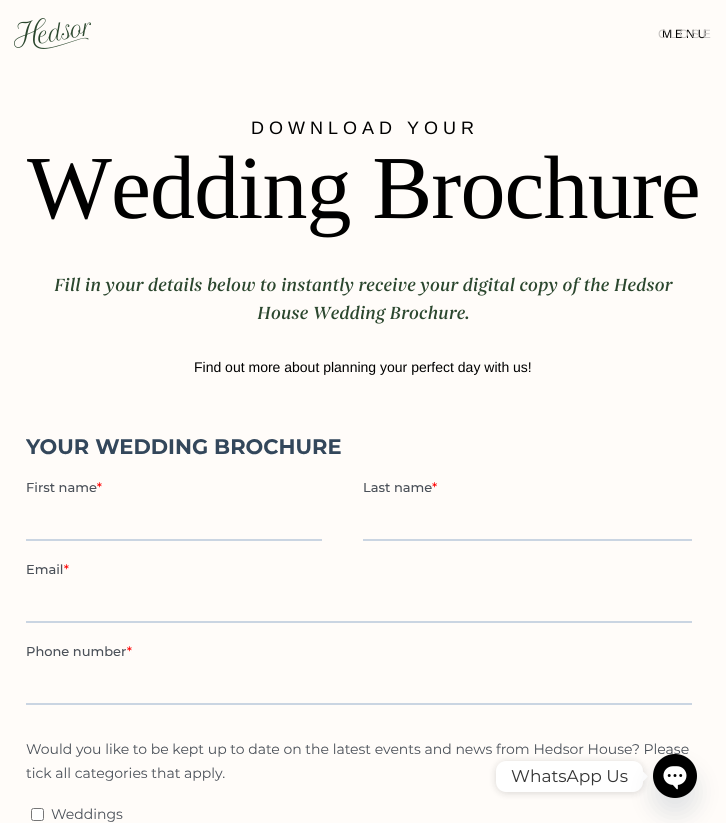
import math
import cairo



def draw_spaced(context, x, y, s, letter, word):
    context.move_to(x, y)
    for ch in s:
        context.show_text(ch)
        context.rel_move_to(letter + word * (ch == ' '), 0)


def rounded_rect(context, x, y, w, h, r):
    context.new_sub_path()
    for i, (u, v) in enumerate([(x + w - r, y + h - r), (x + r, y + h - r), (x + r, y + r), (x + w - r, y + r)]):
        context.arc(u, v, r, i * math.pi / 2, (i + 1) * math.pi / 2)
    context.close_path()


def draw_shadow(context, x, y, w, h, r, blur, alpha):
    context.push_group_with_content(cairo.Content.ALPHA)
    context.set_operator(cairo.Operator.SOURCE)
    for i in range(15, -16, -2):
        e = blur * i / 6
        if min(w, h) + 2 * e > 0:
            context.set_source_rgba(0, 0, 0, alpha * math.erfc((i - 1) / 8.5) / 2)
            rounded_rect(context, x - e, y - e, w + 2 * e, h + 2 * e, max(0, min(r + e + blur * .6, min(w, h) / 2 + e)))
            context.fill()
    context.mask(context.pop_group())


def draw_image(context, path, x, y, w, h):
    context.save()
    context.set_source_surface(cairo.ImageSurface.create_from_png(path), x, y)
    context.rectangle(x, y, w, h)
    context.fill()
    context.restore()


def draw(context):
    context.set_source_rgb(1, 252 / 255, 249 / 255)
    context.paint()
    draw_image(context, "images/1.png", 14, 18, 77, 31)
    draw_image(context, "images/2.png", 26, 439, 666, 383)
    context.set_source_rgb(0, 0, 0)
    draw_shadow(context, 496, 762, 147, 31, 10, 4, 0.15)
    context.set_source_rgb(1, 1, 1)
    rounded_rect(context, 496, 761, 147, 31, 10)
    context.fill()
    context.new_path()
    context.move_to(643, 781.5)
    context.line_to(643, 771.5)
    context.line_to(648, 776.5)
    context.close_path()
    context.fill()
    context.set_source_rgb(73 / 255, 104 / 255, 126 / 255)
    draw_shadow(context, 653, 770, 44, 44, 22, 12, 0.16)
    draw_image(context, "images/3.png", 653, 754, 44, 44)
    context.select_font_face("Liberation Sans")
    context.set_font_size(12)
    context.set_source_rgb(0, 0, 0)
    draw_spaced(context, 662, 38, "MENU", 3, 0)
    context.set_source_rgb(199 / 255, 196 / 255, 194 / 255)
    draw_spaced(context, 658, 38, "CLOSE", 3, 0)
    context.set_font_size(18)
    context.set_source_rgb(0, 0, 0)
    draw_spaced(context, 251, 134, "DOWNLOAD YOUR", 5, 0)
    context.select_font_face("Liberation Serif")
    context.set_font_size(90)
    draw_spaced(context, 27, 218, "Wedding Brochure", -0.9, 0)
    context.select_font_face("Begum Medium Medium", cairo.FontSlant.ITALIC)
    context.set_font_size(18)
    context.set_source_rgb(43 / 255, 71 / 255, 46 / 255)
    context.move_to(54, 291)
    context.show_text("Fill in your details below to instantly receive your digital copy of the Hedsor")
    context.move_to(257, 319)
    context.show_text("House Wedding Brochure.")
    context.select_font_face("Liberation Sans")
    context.set_font_size(14)
    context.set_source_rgb(0, 0, 0)
    context.move_to(194, 372)
    context.show_text("Find out more about planning your perfect day with us!")
    context.select_font_face("Montserrat Thin")
    context.set_font_size(17)
    context.set_source_rgb(51 / 255, 51 / 255, 51 / 255)
    context.move_to(511, 782)
    context.show_text("WhatsApp Us")


surface = cairo.ImageSurface(cairo.Format.RGB24, 726, 823)
context = cairo.Context(surface)
options = cairo.FontOptions()
options.set_hint_metrics(cairo.HintMetrics.OFF)
options.set_hint_style(cairo.HintStyle.NONE)
context.set_font_options(options)
context.set_miter_limit(4)
draw(context)
surface.write_to_png("out.png")
